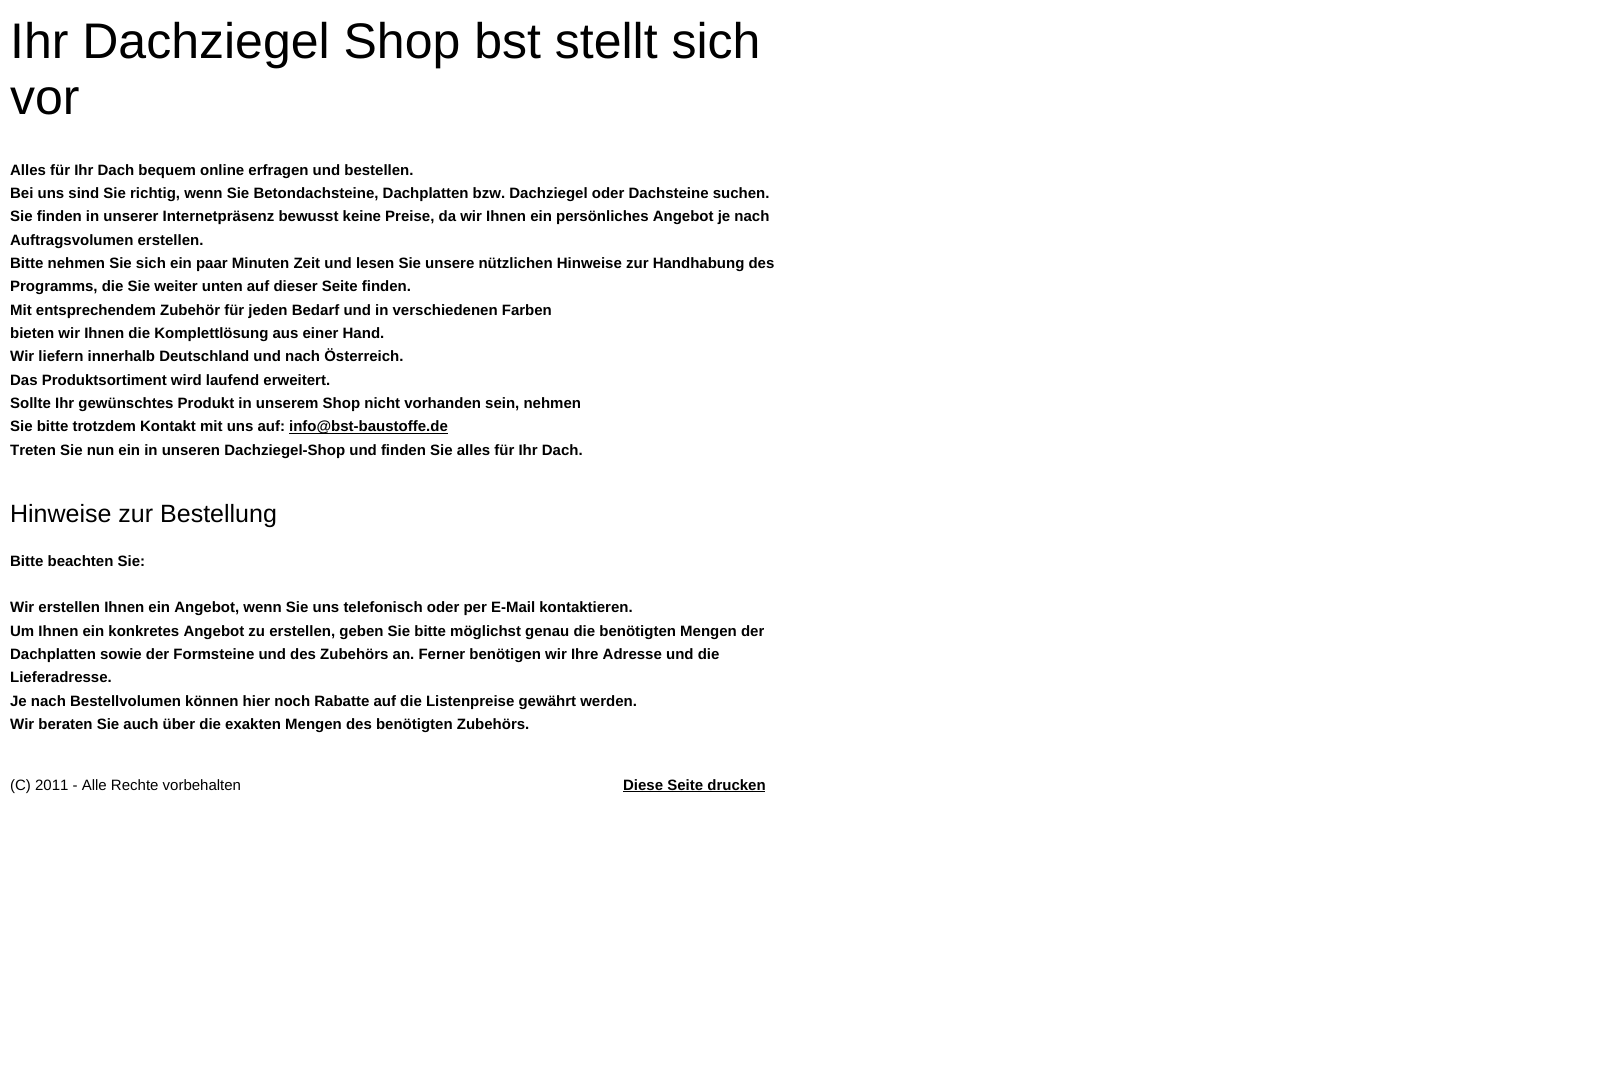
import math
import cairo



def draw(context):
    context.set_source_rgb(1, 1, 1)
    context.paint()
    context.set_source_rgb(0, 0, 0)
    context.rectangle(289, 433, 159, 1)
    context.fill()
    context.rectangle(623, 791, 142, 1)
    context.fill()
    context.select_font_face("Liberation Sans")
    context.set_font_size(50)
    context.move_to(10, 58)
    context.show_text("Ihr Dachziegel Shop bst stellt sich")
    context.move_to(10, 114)
    context.show_text("vor")
    context.select_font_face("Liberation Sans", cairo.FontSlant.NORMAL, cairo.FontWeight.BOLD)
    context.set_font_size(15)
    context.move_to(10, 175)
    context.show_text("Alles für Ihr Dach bequem online erfragen und bestellen.")
    context.move_to(10, 198)
    context.show_text("Bei uns sind Sie richtig, wenn Sie Betondachsteine, Dachplatten bzw. Dachziegel oder Dachsteine suchen.")
    context.move_to(10, 221)
    context.show_text("Sie finden in unserer Internetpräsenz bewusst keine Preise, da wir Ihnen ein persönliches Angebot je nach")
    context.move_to(10, 245)
    context.show_text("Auftragsvolumen erstellen.")
    context.move_to(10, 268)
    context.show_text("Bitte nehmen Sie sich ein paar Minuten Zeit und lesen Sie unsere nützlichen Hinweise zur Handhabung des")
    context.move_to(10, 291)
    context.show_text("Programms, die Sie weiter unten auf dieser Seite finden.")
    context.move_to(10, 315)
    context.show_text("Mit entsprechendem Zubehör für jeden Bedarf und in verschiedenen Farben")
    context.move_to(10, 338)
    context.show_text("bieten wir Ihnen die Komplettlösung aus einer Hand.")
    context.move_to(10, 361)
    context.show_text("Wir liefern innerhalb Deutschland und nach Österreich.")
    context.move_to(10, 385)
    context.show_text("Das Produktsortiment wird laufend erweitert.")
    context.move_to(10, 408)
    context.show_text("Sollte Ihr gewünschtes Produkt in unserem Shop nicht vorhanden sein, nehmen")
    context.move_to(10, 431)
    context.show_text("Sie bitte trotzdem Kontakt mit uns auf:")
    context.move_to(289, 431)
    context.show_text("info@bst-baustoffe.de")
    context.move_to(10, 455)
    context.show_text("Treten Sie nun ein in unseren Dachziegel-Shop und finden Sie alles für Ihr Dach.")
    context.select_font_face("Liberation Sans")
    context.set_font_size(25)
    context.move_to(10, 522)
    context.show_text("Hinweise zur Bestellung")
    context.select_font_face("Liberation Sans", cairo.FontSlant.NORMAL, cairo.FontWeight.BOLD)
    context.set_font_size(15)
    context.move_to(10, 566)
    context.show_text("Bitte beachten Sie:")
    context.move_to(10, 612)
    context.show_text("Wir erstellen Ihnen ein Angebot, wenn Sie uns telefonisch oder per E-Mail kontaktieren.")
    context.move_to(10, 636)
    context.show_text("Um Ihnen ein konkretes Angebot zu erstellen, geben Sie bitte möglichst genau die benötigten Mengen der")
    context.move_to(10, 659)
    context.show_text("Dachplatten sowie der Formsteine und des Zubehörs an. Ferner benötigen wir Ihre Adresse und die")
    context.move_to(10, 682)
    context.show_text("Lieferadresse.")
    context.move_to(10, 706)
    context.show_text("Je nach Bestellvolumen können hier noch Rabatte auf die Listenpreise gewährt werden.")
    context.move_to(10, 729)
    context.show_text("Wir beraten Sie auch über die exakten Mengen des benötigten Zubehörs.")
    context.select_font_face("Liberation Sans")
    context.move_to(10, 790)
    context.show_text("(C) 2011 - Alle Rechte vorbehalten")
    context.select_font_face("Liberation Sans", cairo.FontSlant.NORMAL, cairo.FontWeight.BOLD)
    context.move_to(623, 790)
    context.show_text("Diese Seite drucken")


surface = cairo.ImageSurface(cairo.Format.RGB24, 1605, 1078)
context = cairo.Context(surface)
options = cairo.FontOptions()
options.set_hint_metrics(cairo.HintMetrics.OFF)
options.set_hint_style(cairo.HintStyle.NONE)
context.set_font_options(options)
context.set_miter_limit(4)
draw(context)
surface.write_to_png("out.png")
